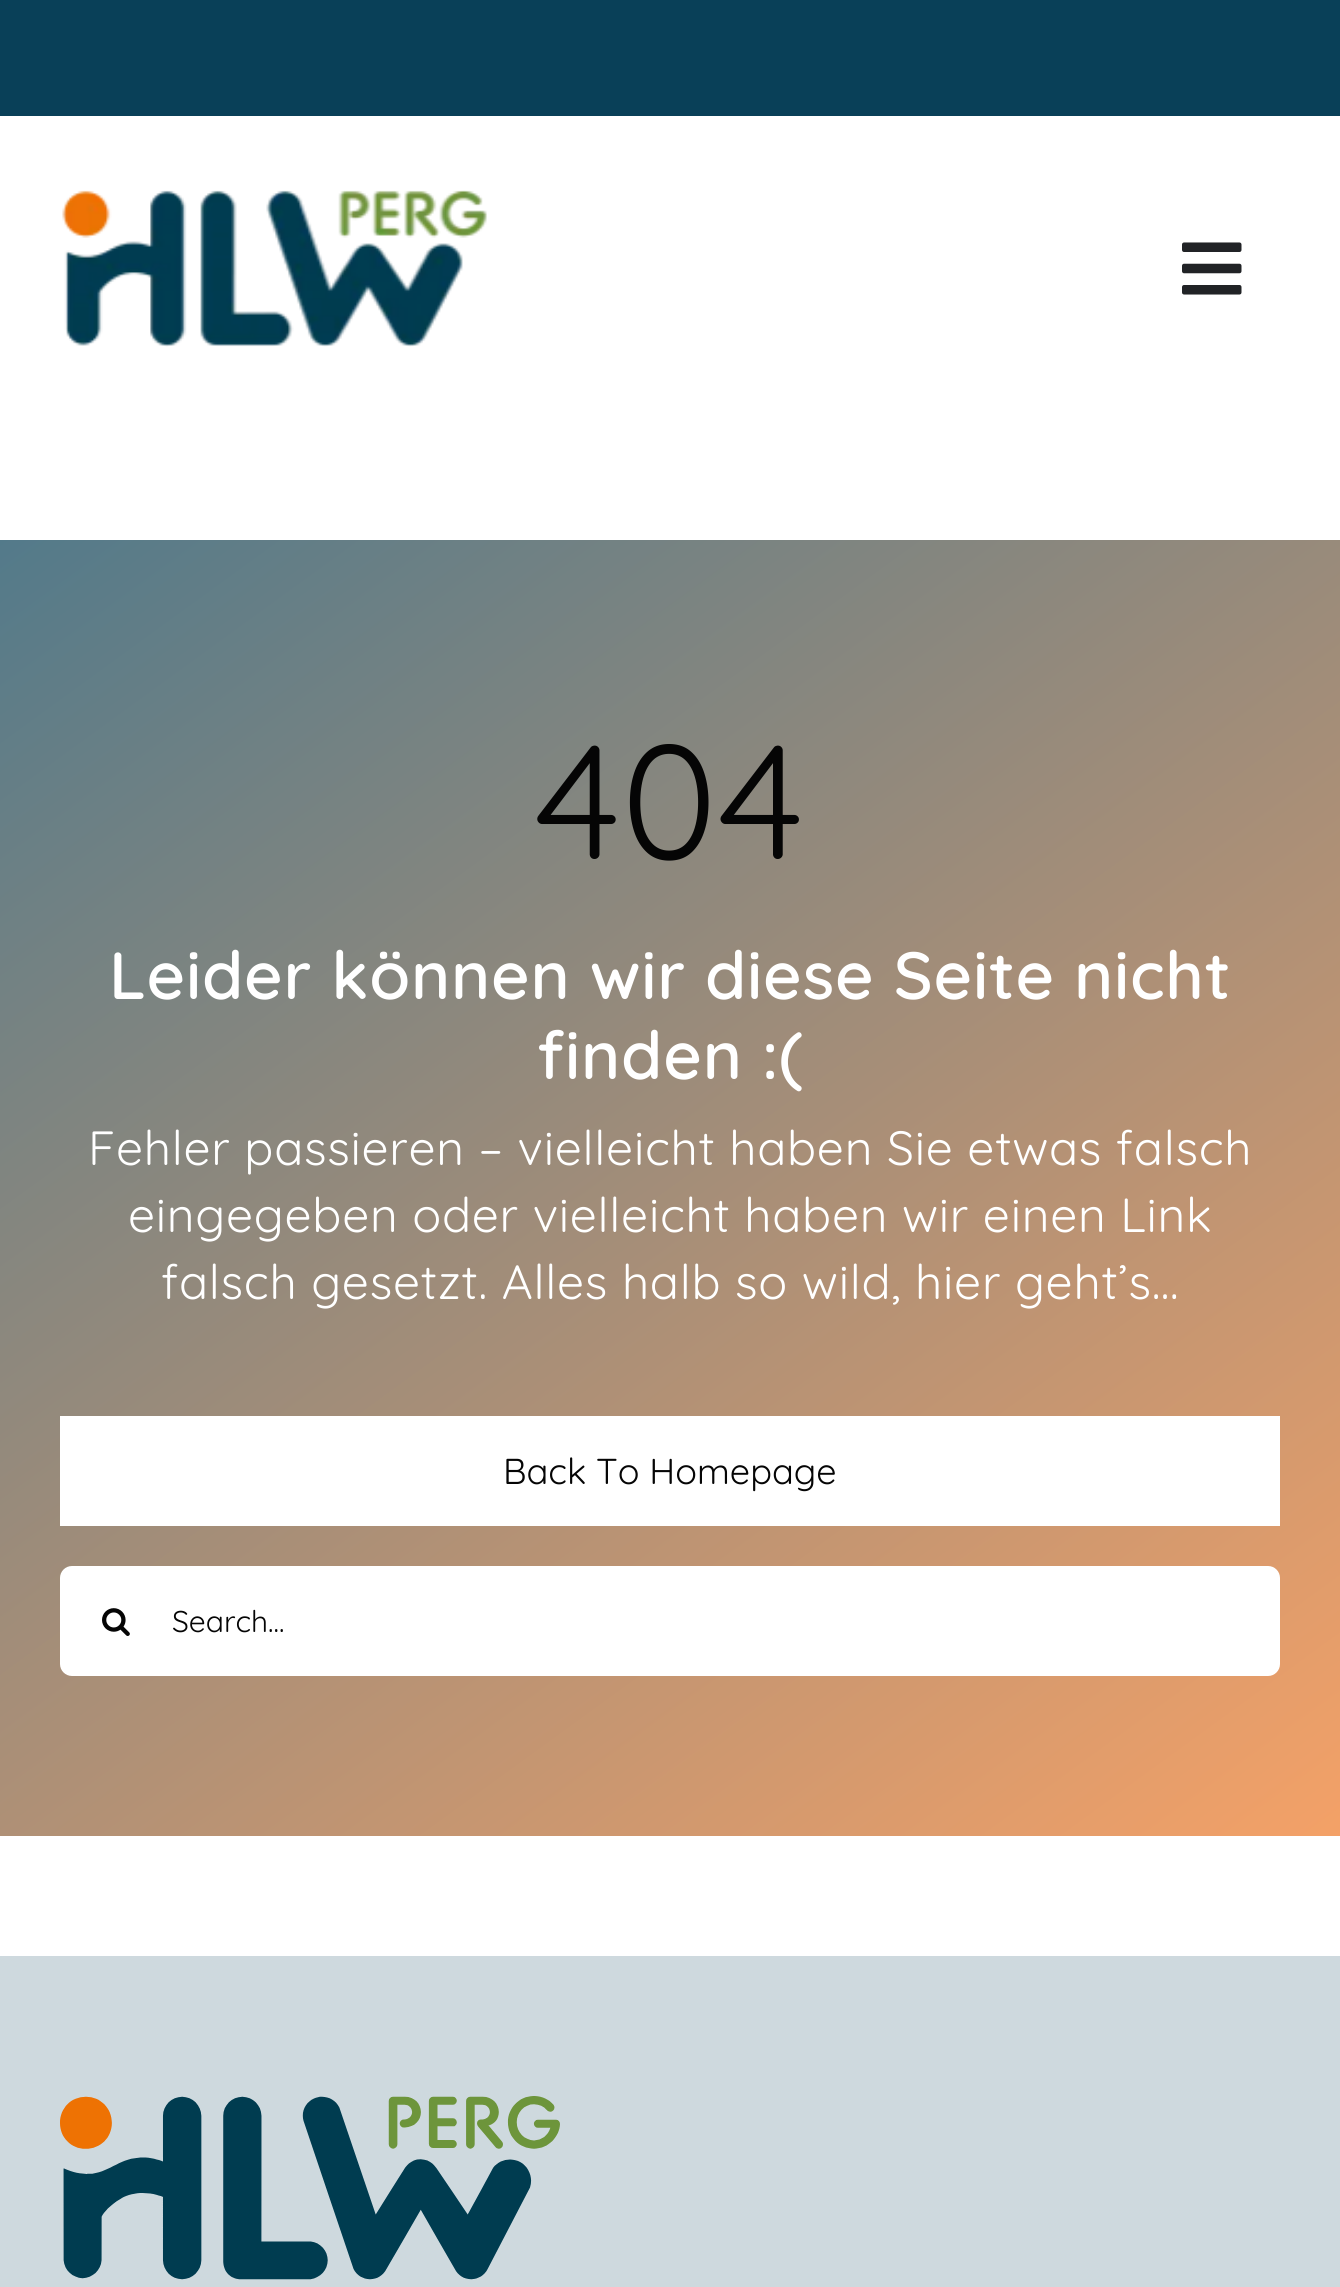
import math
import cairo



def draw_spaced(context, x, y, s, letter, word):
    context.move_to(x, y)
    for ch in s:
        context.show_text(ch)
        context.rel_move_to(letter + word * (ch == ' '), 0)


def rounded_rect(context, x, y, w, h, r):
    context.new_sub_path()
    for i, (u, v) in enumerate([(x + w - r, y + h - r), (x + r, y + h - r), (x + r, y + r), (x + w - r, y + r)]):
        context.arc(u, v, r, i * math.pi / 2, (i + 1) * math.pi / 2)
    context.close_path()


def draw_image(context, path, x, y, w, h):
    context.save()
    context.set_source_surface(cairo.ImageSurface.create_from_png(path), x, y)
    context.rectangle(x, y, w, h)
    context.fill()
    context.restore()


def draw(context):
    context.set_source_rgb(1, 1, 1)
    context.paint()
    context.set_source_rgb(9 / 255, 64 / 255, 88 / 255)
    context.rectangle(0, 0, 1340, 116)
    context.fill()
    draw_image(context, "images/1.png", 62, 190, 425, 157)
    draw_image(context, "images/2.png", 1182, 242, 60, 53)
    gradient = cairo.LinearGradient(130, 445, 1210, 1931)
    gradient.add_color_stop_rgba(0, 83 / 255, 122 / 255, 138 / 255, 1)
    gradient.add_color_stop_rgba(1, 244 / 255, 161 / 255, 103 / 255, 1)
    context.set_source(gradient)
    context.rectangle(0, 540, 1340, 1296)
    context.fill()
    context.set_source_rgb(1, 1, 1)
    context.rectangle(60, 1416, 1220, 110)
    context.fill()
    rounded_rect(context, 61, 1567, 1218, 108, 11)
    context.fill_preserve()
    context.stroke()
    draw_image(context, "images/3.png", 102, 1608, 28, 28)
    context.set_source_rgb(206 / 255, 217 / 255, 222 / 255)
    context.rectangle(0, 1956, 1340, 331)
    context.fill()
    draw_image(context, "images/4.png", 60, 2096, 500, 184)
    context.select_font_face("Quicksand")
    context.set_font_size(162)
    context.set_source_rgb(5 / 255, 5 / 255, 5 / 255)
    draw_spaced(context, 535, 859, "404", 0.72, 0)
    context.select_font_face("Quicksand SemiBold")
    context.set_font_size(66.6)
    context.set_source_rgb(1, 1, 1)
    draw_spaced(context, 109, 999, "Leider können wir diese Seite nicht", 0.72, 0)
    draw_spaced(context, 537, 1079, "finden :(", 0.72, 0)
    context.select_font_face("Quicksand")
    context.set_font_size(48)
    draw_spaced(context, 88, 1165, "Fehler passieren – vielleicht haben Sie etwas falsch", 0.72, 0)
    draw_spaced(context, 128, 1232, "eingegeben oder vielleicht haben wir einen Link", 0.72, 0)
    draw_spaced(context, 161, 1299, "falsch gesetzt. Alles halb so wild, hier geht’s…", 0.72, 0)
    context.set_font_size(36)
    context.set_source_rgb(5 / 255, 5 / 255, 5 / 255)
    context.move_to(503, 1484)
    context.show_text("Back To Homepage")
    context.set_font_size(30)
    context.move_to(172, 1632)
    context.show_text("Search...")


surface = cairo.ImageSurface(cairo.Format.RGB24, 1340, 2287)
context = cairo.Context(surface)
options = cairo.FontOptions()
options.set_hint_metrics(cairo.HintMetrics.OFF)
options.set_hint_style(cairo.HintStyle.NONE)
context.set_font_options(options)
context.set_miter_limit(4)
draw(context)
surface.write_to_png("out.png")
